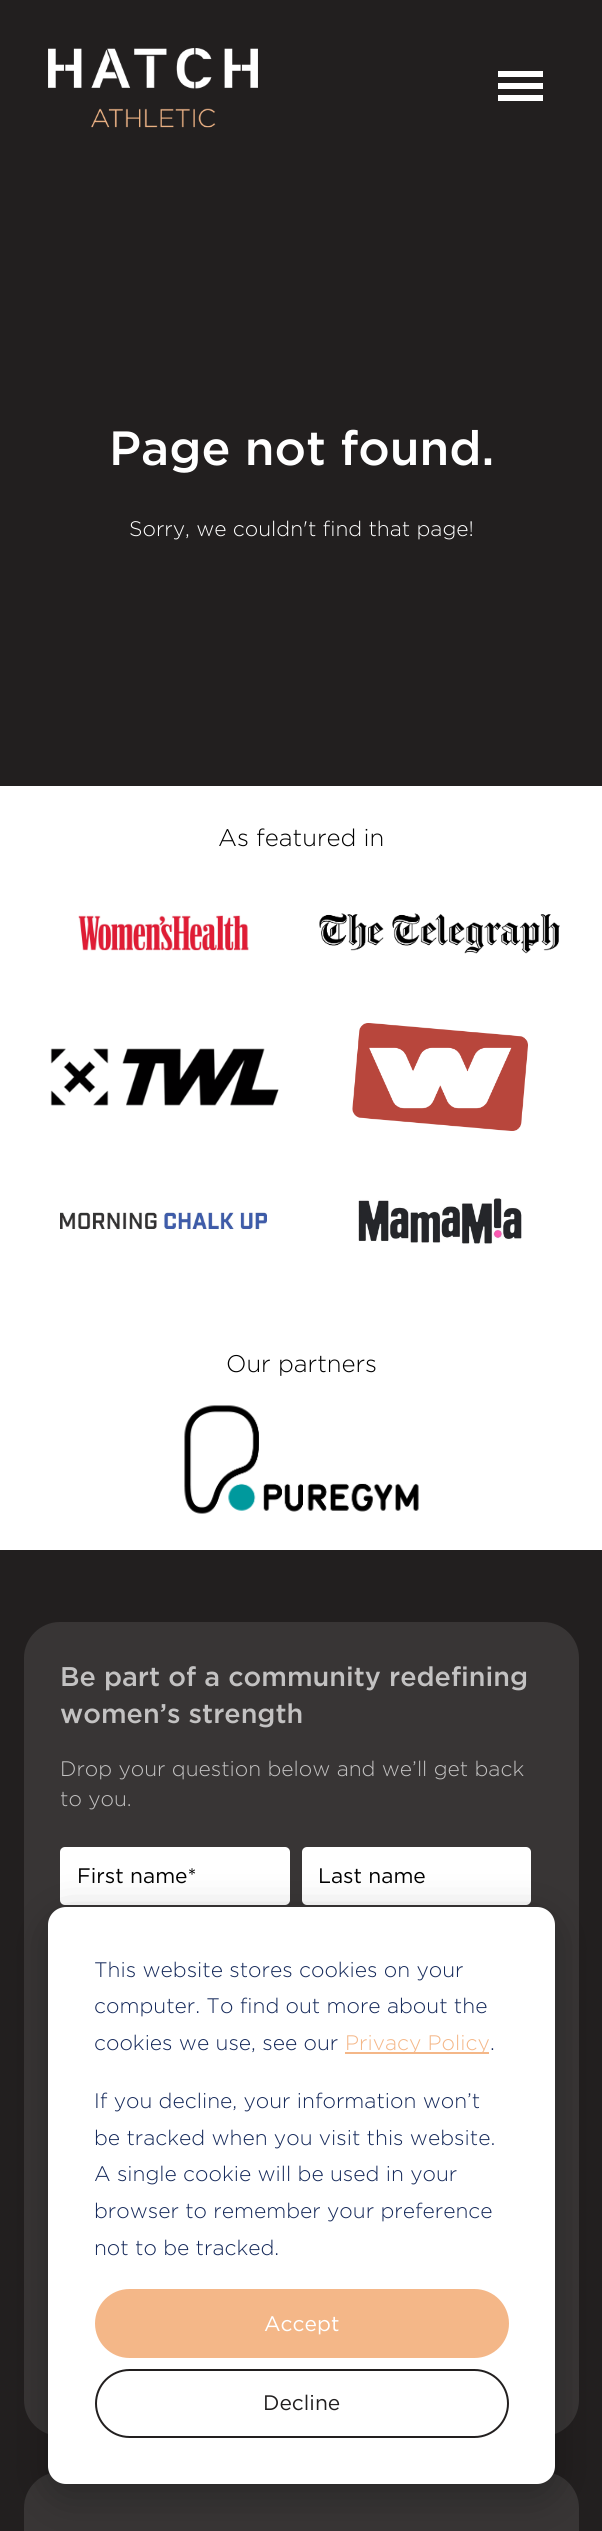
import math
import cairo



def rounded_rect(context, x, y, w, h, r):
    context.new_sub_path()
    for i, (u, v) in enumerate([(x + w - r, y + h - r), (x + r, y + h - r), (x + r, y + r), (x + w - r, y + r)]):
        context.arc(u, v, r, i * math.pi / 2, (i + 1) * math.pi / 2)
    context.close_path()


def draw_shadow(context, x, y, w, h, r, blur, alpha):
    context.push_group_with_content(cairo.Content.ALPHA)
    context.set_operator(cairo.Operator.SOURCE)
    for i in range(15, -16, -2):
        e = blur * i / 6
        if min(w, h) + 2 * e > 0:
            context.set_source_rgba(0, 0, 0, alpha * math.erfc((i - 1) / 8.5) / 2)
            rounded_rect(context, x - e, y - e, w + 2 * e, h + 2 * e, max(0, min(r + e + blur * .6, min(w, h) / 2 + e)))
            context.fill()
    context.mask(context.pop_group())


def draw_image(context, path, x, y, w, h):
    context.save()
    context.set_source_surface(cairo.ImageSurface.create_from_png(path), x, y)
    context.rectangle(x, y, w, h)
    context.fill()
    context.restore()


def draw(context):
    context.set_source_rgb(34 / 255, 31 / 255, 31 / 255)
    context.paint()
    draw_image(context, "images/1.png", 48, 48, 210, 80)
    context.set_source_rgb(1, 1, 1)
    context.rectangle(498, 71, 45, 6)
    context.fill()
    context.rectangle(498, 83, 45, 6)
    context.fill()
    context.rectangle(498, 95, 45, 6)
    context.fill()
    context.rectangle(0, 786, 602, 764)
    context.fill()
    draw_image(context, "images/2.png", 78, 915, 171, 36)
    draw_image(context, "images/3.png", 319, 913, 241, 41)
    draw_image(context, "images/4.png", 50, 1048, 229, 58)
    draw_image(context, "images/5.png", 352, 1023, 176, 108)
    draw_image(context, "images/6.png", 60, 1212, 207, 18)
    draw_image(context, "images/7.png", 358, 1198, 164, 46)
    draw_image(context, "images/8.png", 184, 1405, 235, 109)
    context.set_source_rgb(56 / 255, 53 / 255, 53 / 255)
    rounded_rect(context, 24, 1622, 555, 814, 36)
    context.fill()
    context.set_source_rgb(1, 1, 1)
    rounded_rect(context, 60, 1847, 230, 58, 5)
    context.fill()
    rounded_rect(context, 302, 1847, 229, 58, 5)
    context.fill()
    context.set_source_rgb(56 / 255, 53 / 255, 53 / 255)
    rounded_rect(context, 24, 2472, 555, 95, 36)
    context.fill()
    context.set_source_rgb(0, 0, 0)
    draw_shadow(context, 48, 1919, 507, 577, 18, 21, 0.28)
    context.set_source_rgb(1, 1, 1)
    rounded_rect(context, 48, 1907, 507, 577, 18)
    context.fill()
    context.set_source_rgb(244 / 255, 183 / 255, 136 / 255)
    context.rectangle(345, 2052, 144, 2)
    context.fill()
    rounded_rect(context, 96, 2290, 412, 67, 33.5)
    context.fill_preserve()
    context.stroke()
    rounded_rect(context, 96, 2370, 412, 67, 33.5)
    context.set_source_rgb(34 / 255, 31 / 255, 31 / 255)
    context.stroke()
    context.select_font_face("Gotham Medium")
    context.set_font_size(48)
    context.set_source_rgb(1, 1, 1)
    context.move_to(109, 465)
    context.show_text("Page not found.")
    context.select_font_face("Gotham Light")
    context.set_font_size(21)
    context.move_to(129, 536)
    context.show_text("Sorry, we couldn't find that page!")
    context.set_font_size(24)
    context.set_source_rgb(0, 0, 0)
    context.move_to(218, 846)
    context.show_text("As featured in")
    context.move_to(226, 1372)
    context.show_text("Our partners")
    context.select_font_face("Gotham Medium")
    context.set_font_size(27)
    context.set_source_rgb(195 / 255, 194 / 255, 194 / 255)
    context.move_to(60, 1686)
    context.show_text("Be part of a community redefining")
    context.move_to(60, 1723)
    context.show_text("women’s strength")
    context.select_font_face("Gotham Light")
    context.set_font_size(21)
    context.move_to(60, 1776)
    context.show_text("Drop your question below and we’ll get back")
    context.move_to(60, 1806)
    context.show_text("to you.")
    context.select_font_face("Gotham")
    context.set_source_rgb(0, 0, 0)
    context.move_to(77, 1883)
    context.show_text("First name*")
    context.move_to(318, 1883)
    context.show_text("Last name")
    context.select_font_face("Gotham Light")
    context.set_source_rgb(21 / 255, 41 / 255, 90 / 255)
    context.move_to(94, 1977)
    context.show_text("This website stores cookies on your")
    context.move_to(94, 2013)
    context.show_text("computer. To find out more about the")
    context.move_to(94, 2050)
    context.show_text("cookies we use, see our")
    context.set_source_rgb(244 / 255, 183 / 255, 136 / 255)
    context.move_to(345, 2050)
    context.show_text("Privacy Policy")
    context.set_source_rgb(21 / 255, 41 / 255, 90 / 255)
    context.move_to(490, 2050)
    context.show_text(".")
    context.move_to(94, 2108)
    context.show_text("If you decline, your information won’t")
    context.move_to(94, 2145)
    context.show_text("be tracked when you visit this website.")
    context.move_to(94, 2181)
    context.show_text("A single cookie will be used in your")
    context.move_to(94, 2218)
    context.show_text("browser to remember your preference")
    context.move_to(94, 2255)
    context.show_text("not to be tracked.")
    context.select_font_face("Gotham")
    context.set_source_rgb(1, 1, 1)
    context.move_to(264, 2331)
    context.show_text("Accept")
    context.set_source_rgb(34 / 255, 31 / 255, 31 / 255)
    context.move_to(263, 2410)
    context.show_text("Decline")


surface = cairo.ImageSurface(cairo.Format.RGB24, 602, 2531)
context = cairo.Context(surface)
options = cairo.FontOptions()
options.set_hint_metrics(cairo.HintMetrics.OFF)
options.set_hint_style(cairo.HintStyle.NONE)
context.set_font_options(options)
context.set_miter_limit(4)
draw(context)
surface.write_to_png("out.png")
